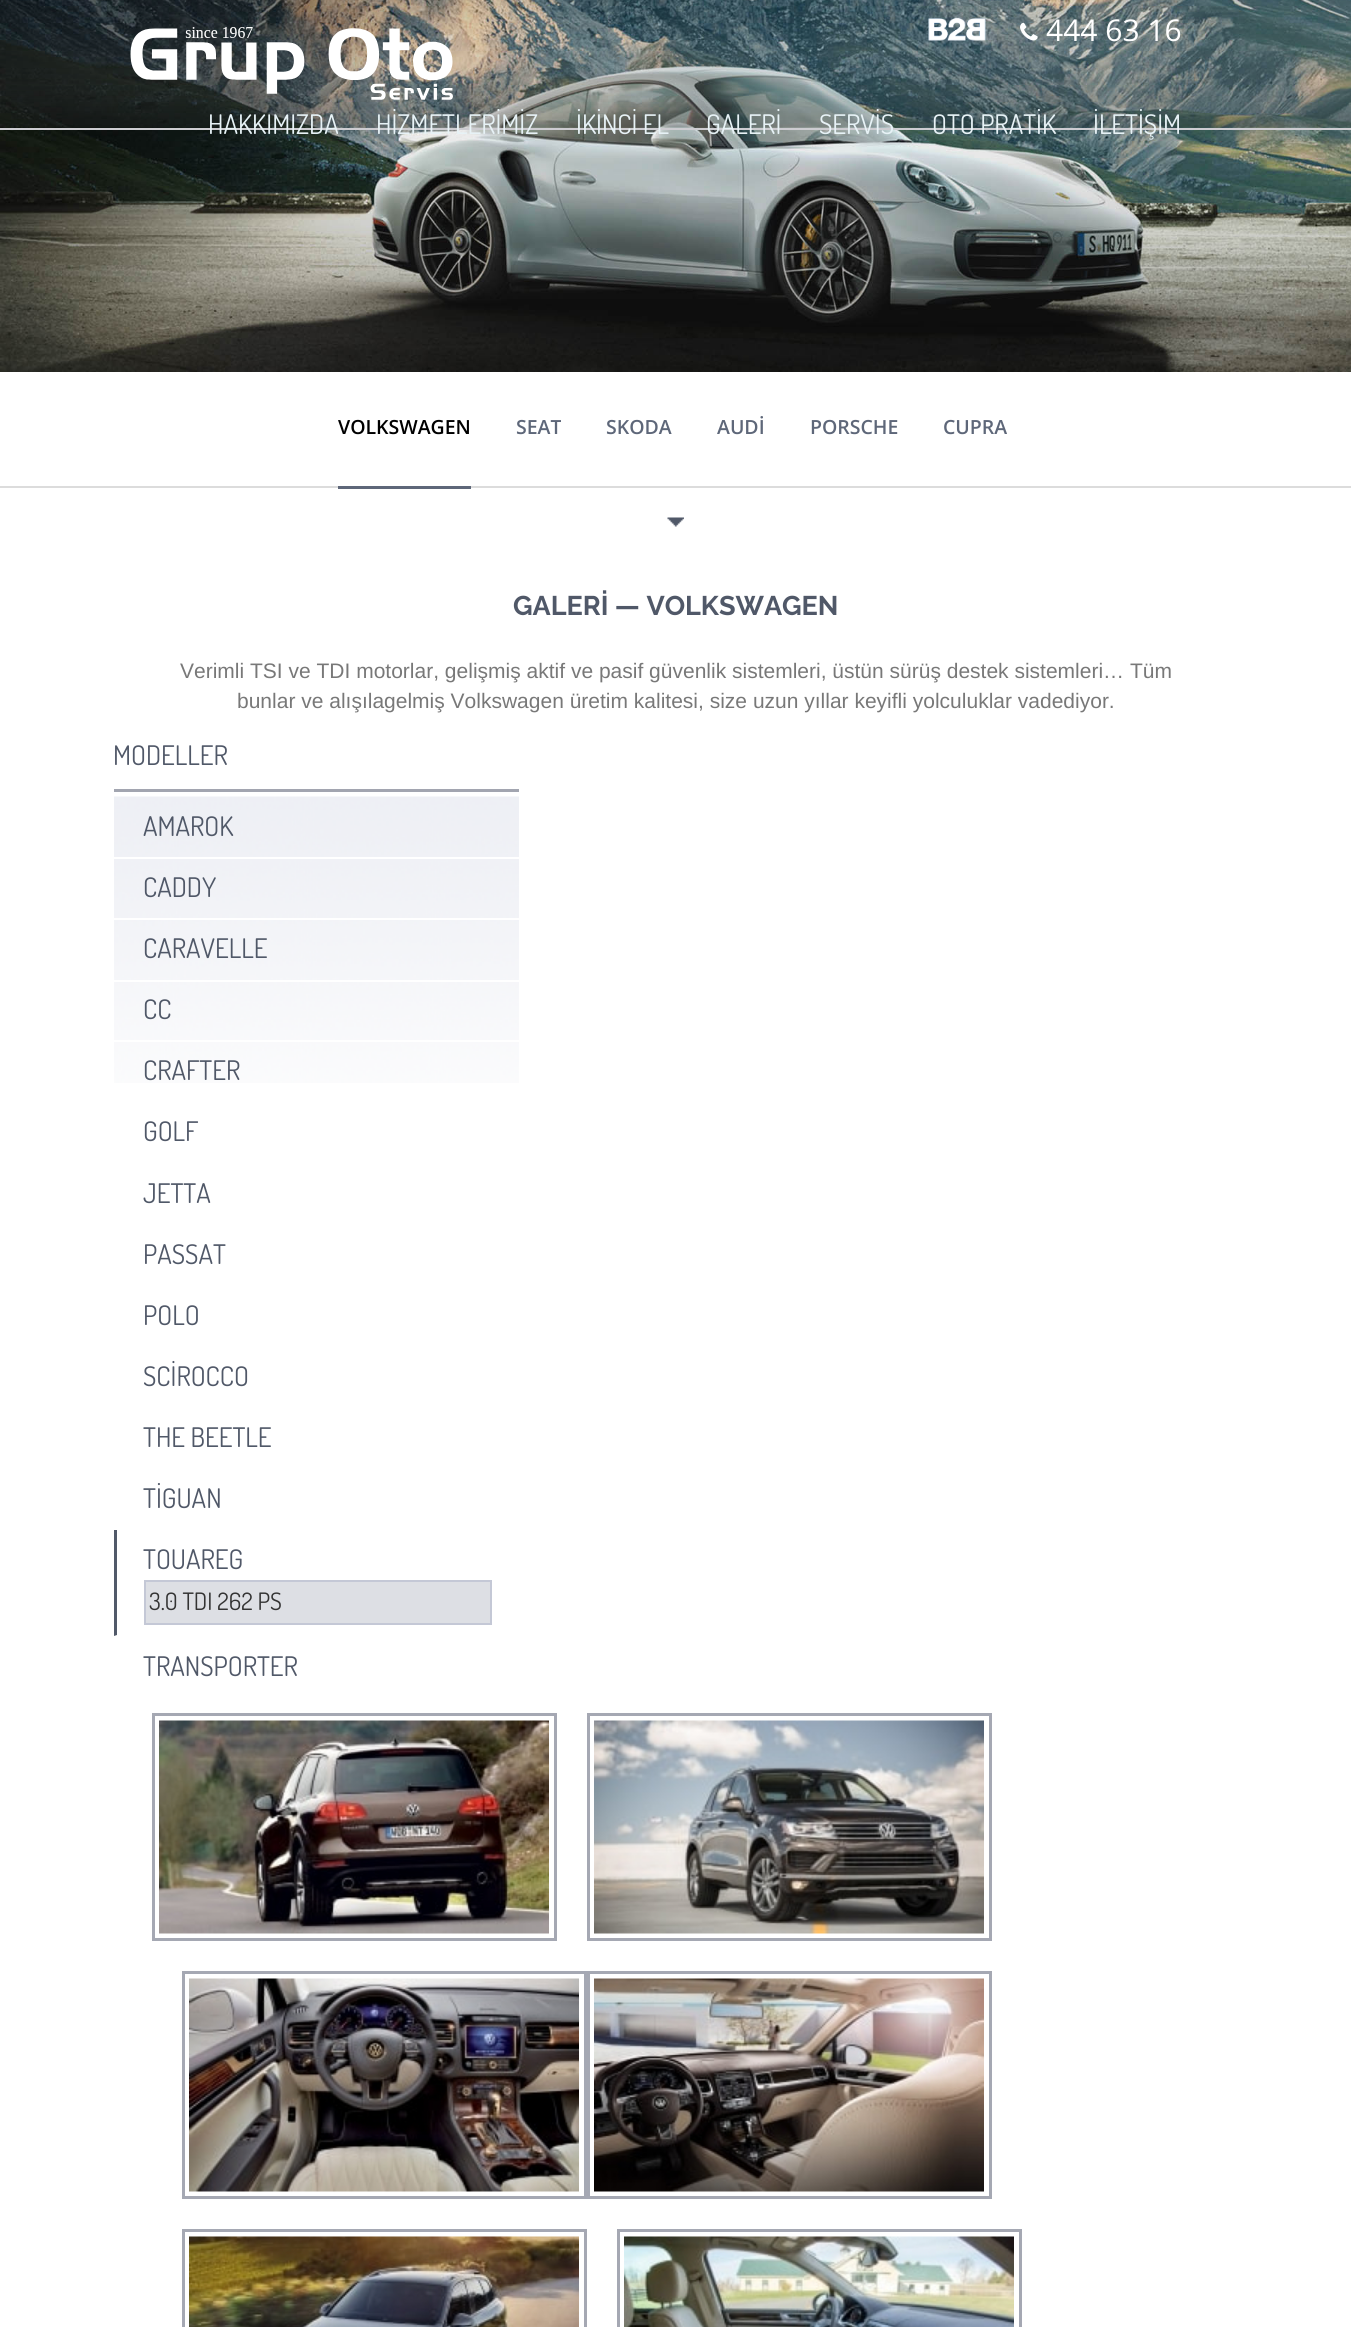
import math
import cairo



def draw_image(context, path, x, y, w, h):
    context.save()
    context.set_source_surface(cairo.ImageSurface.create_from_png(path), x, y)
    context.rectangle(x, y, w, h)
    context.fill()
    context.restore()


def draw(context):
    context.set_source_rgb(1, 1, 1)
    context.paint()
    draw_image(context, "images/1.png", 0, 0, 1351, 372)
    draw_image(context, "images/2.png", 0, 0, 1351, 128)
    context.set_source_rgb(205 / 255, 204 / 255, 209 / 255)
    context.rectangle(0, 128, 1351, 2)
    context.fill()
    draw_image(context, "images/3.png", 130, 27, 323, 73)
    draw_image(context, "images/4.png", 928, 18, 58, 23)
    draw_image(context, "images/5.png", 1020, 22, 18, 19)
    context.set_source_rgb(220 / 255, 220 / 255, 220 / 255)
    context.rectangle(0, 486, 1351, 2)
    context.fill()
    context.set_source_rgb(94 / 255, 103 / 255, 121 / 255)
    context.rectangle(338, 486, 133, 3)
    context.fill()
    draw_image(context, "images/6.png", 667, 517, 17, 10)
    context.set_source_rgb(162 / 255, 165 / 255, 176 / 255)
    context.rectangle(114, 789, 405, 3)
    context.fill()
    draw_image(context, "images/7.png", 114, 796, 405, 287)
    context.set_source_rgb(1, 1, 1)
    context.rectangle(114, 857, 405, 2)
    context.fill()
    context.rectangle(114, 918, 405, 2)
    context.fill()
    context.rectangle(114, 980, 405, 2)
    context.fill()
    context.rectangle(114, 1040, 405, 2)
    context.fill()
    context.set_source_rgb(81 / 255, 89 / 255, 105 / 255)
    context.new_path()
    context.move_to(114, 1636)
    context.line_to(114, 1530)
    context.line_to(117, 1530)
    context.line_to(117, 1635)
    context.close_path()
    context.fill()
    context.set_source_rgb(221 / 255, 223 / 255, 228 / 255)
    context.rectangle(145, 1581, 346, 43)
    context.fill_preserve()
    context.set_source_rgb(196 / 255, 200 / 255, 214 / 255)
    context.stroke()
    context.rectangle(153.5, 1714.5, 402, 225)
    context.set_source_rgb(165 / 255, 168 / 255, 179 / 255)
    context.set_line_width(3)
    context.stroke()
    draw_image(context, "images/8.png", 159, 1720, 390, 214)
    context.rectangle(588.5, 1714.5, 402, 225)
    context.stroke()
    draw_image(context, "images/9.png", 594, 1720, 390, 214)
    context.rectangle(183.5, 1972.5, 402, 225)
    context.stroke()
    draw_image(context, "images/10.png", 189, 1978, 390, 214)
    context.rectangle(588.5, 1972.5, 402, 225)
    context.stroke()
    draw_image(context, "images/11.png", 594, 1978, 390, 214)
    context.rectangle(183.5, 2230.5, 402, 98)
    context.stroke()
    draw_image(context, "images/12.png", 189, 2236, 390, 91)
    context.rectangle(618.5, 2230.5, 402, 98)
    context.stroke()
    draw_image(context, "images/13.png", 624, 2236, 390, 91)
    context.select_font_face("Open Sans")
    context.set_font_size(30)
    context.set_source_rgb(1, 1, 1)
    context.move_to(1046, 41)
    context.show_text("444 63 16")
    context.select_font_face("Dosis")
    context.set_font_size(27)
    context.set_source_rgb(231 / 255, 242 / 255, 246 / 255)
    context.move_to(208, 134)
    context.show_text("HAKKIMIZDA")
    context.move_to(376, 134)
    context.show_text("HİZMETLERİMİZ")
    context.move_to(576, 134)
    context.show_text("İKİNCİ EL")
    context.move_to(706, 134)
    context.show_text("GALERİ")
    context.move_to(819, 134)
    context.show_text("SERVİS")
    context.move_to(932, 134)
    context.show_text("OTO PRATİK")
    context.move_to(1093, 134)
    context.show_text("İLETİŞİM")
    context.select_font_face("Open Sans SemiBold")
    context.set_font_size(19.5)
    context.set_source_rgb(0, 0, 0)
    context.move_to(338, 434)
    context.show_text("VOLKSWAGEN")
    context.set_source_rgb(94 / 255, 103 / 255, 121 / 255)
    context.move_to(516, 434)
    context.show_text("SEAT")
    context.move_to(606, 434)
    context.show_text("SKODA")
    context.move_to(717, 434)
    context.show_text("AUDİ")
    context.move_to(810, 434)
    context.show_text("PORSCHE")
    context.move_to(943, 434)
    context.show_text("CUPRA")
    context.select_font_face("Raleway", cairo.FontSlant.NORMAL, cairo.FontWeight.BOLD)
    context.set_font_size(27)
    context.set_source_rgb(80 / 255, 88 / 255, 104 / 255)
    context.move_to(513, 615)
    context.show_text("GALERİ — VOLKSWAGEN")
    context.select_font_face("Liberation Sans")
    context.set_font_size(21)
    context.set_source_rgb(120 / 255, 120 / 255, 120 / 255)
    context.move_to(180, 678)
    context.show_text("Verimli TSI ve TDI motorlar, gelişmiş aktif ve pasif güvenlik sistemleri, üstün sürüş destek sistemleri… Tüm")
    context.move_to(237, 708)
    context.show_text("bunlar ve alışılagelmiş Volkswagen üretim kalitesi, size uzun yıllar keyifli yolculuklar vadediyor.")
    context.select_font_face("Dosis")
    context.set_font_size(27)
    context.set_source_rgb(80 / 255, 88 / 255, 104 / 255)
    context.move_to(113, 765)
    context.show_text("MODELLER")
    context.move_to(143, 836)
    context.show_text("AMAROK")
    context.move_to(143, 897)
    context.show_text("CADDY")
    context.move_to(143, 958)
    context.show_text("CARAVELLE")
    context.move_to(143, 1019)
    context.show_text("CC")
    context.move_to(143, 1080)
    context.show_text("CRAFTER")
    context.move_to(143, 1141)
    context.show_text("GOLF")
    context.move_to(143, 1203)
    context.show_text("JETTA")
    context.move_to(143, 1264)
    context.show_text("PASSAT")
    context.move_to(143, 1325)
    context.show_text("POLO")
    context.move_to(143, 1386)
    context.show_text("SCİROCCO")
    context.move_to(143, 1447)
    context.show_text("THE BEETLE")
    context.move_to(143, 1508)
    context.show_text("TİGUAN")
    context.move_to(143, 1569)
    context.show_text("TOUAREG")
    context.set_font_size(24)
    context.set_source_rgb(51 / 255, 51 / 255, 51 / 255)
    context.move_to(149, 1610)
    context.show_text("3.0 TDI 262 PS")
    context.set_font_size(27)
    context.set_source_rgb(80 / 255, 88 / 255, 104 / 255)
    context.move_to(143, 1676)
    context.show_text("TRANSPORTER")


surface = cairo.ImageSurface(cairo.Format.RGB24, 1351, 2327)
context = cairo.Context(surface)
options = cairo.FontOptions()
options.set_hint_metrics(cairo.HintMetrics.OFF)
options.set_hint_style(cairo.HintStyle.NONE)
context.set_font_options(options)
context.set_miter_limit(4)
draw(context)
surface.write_to_png("out.png")
